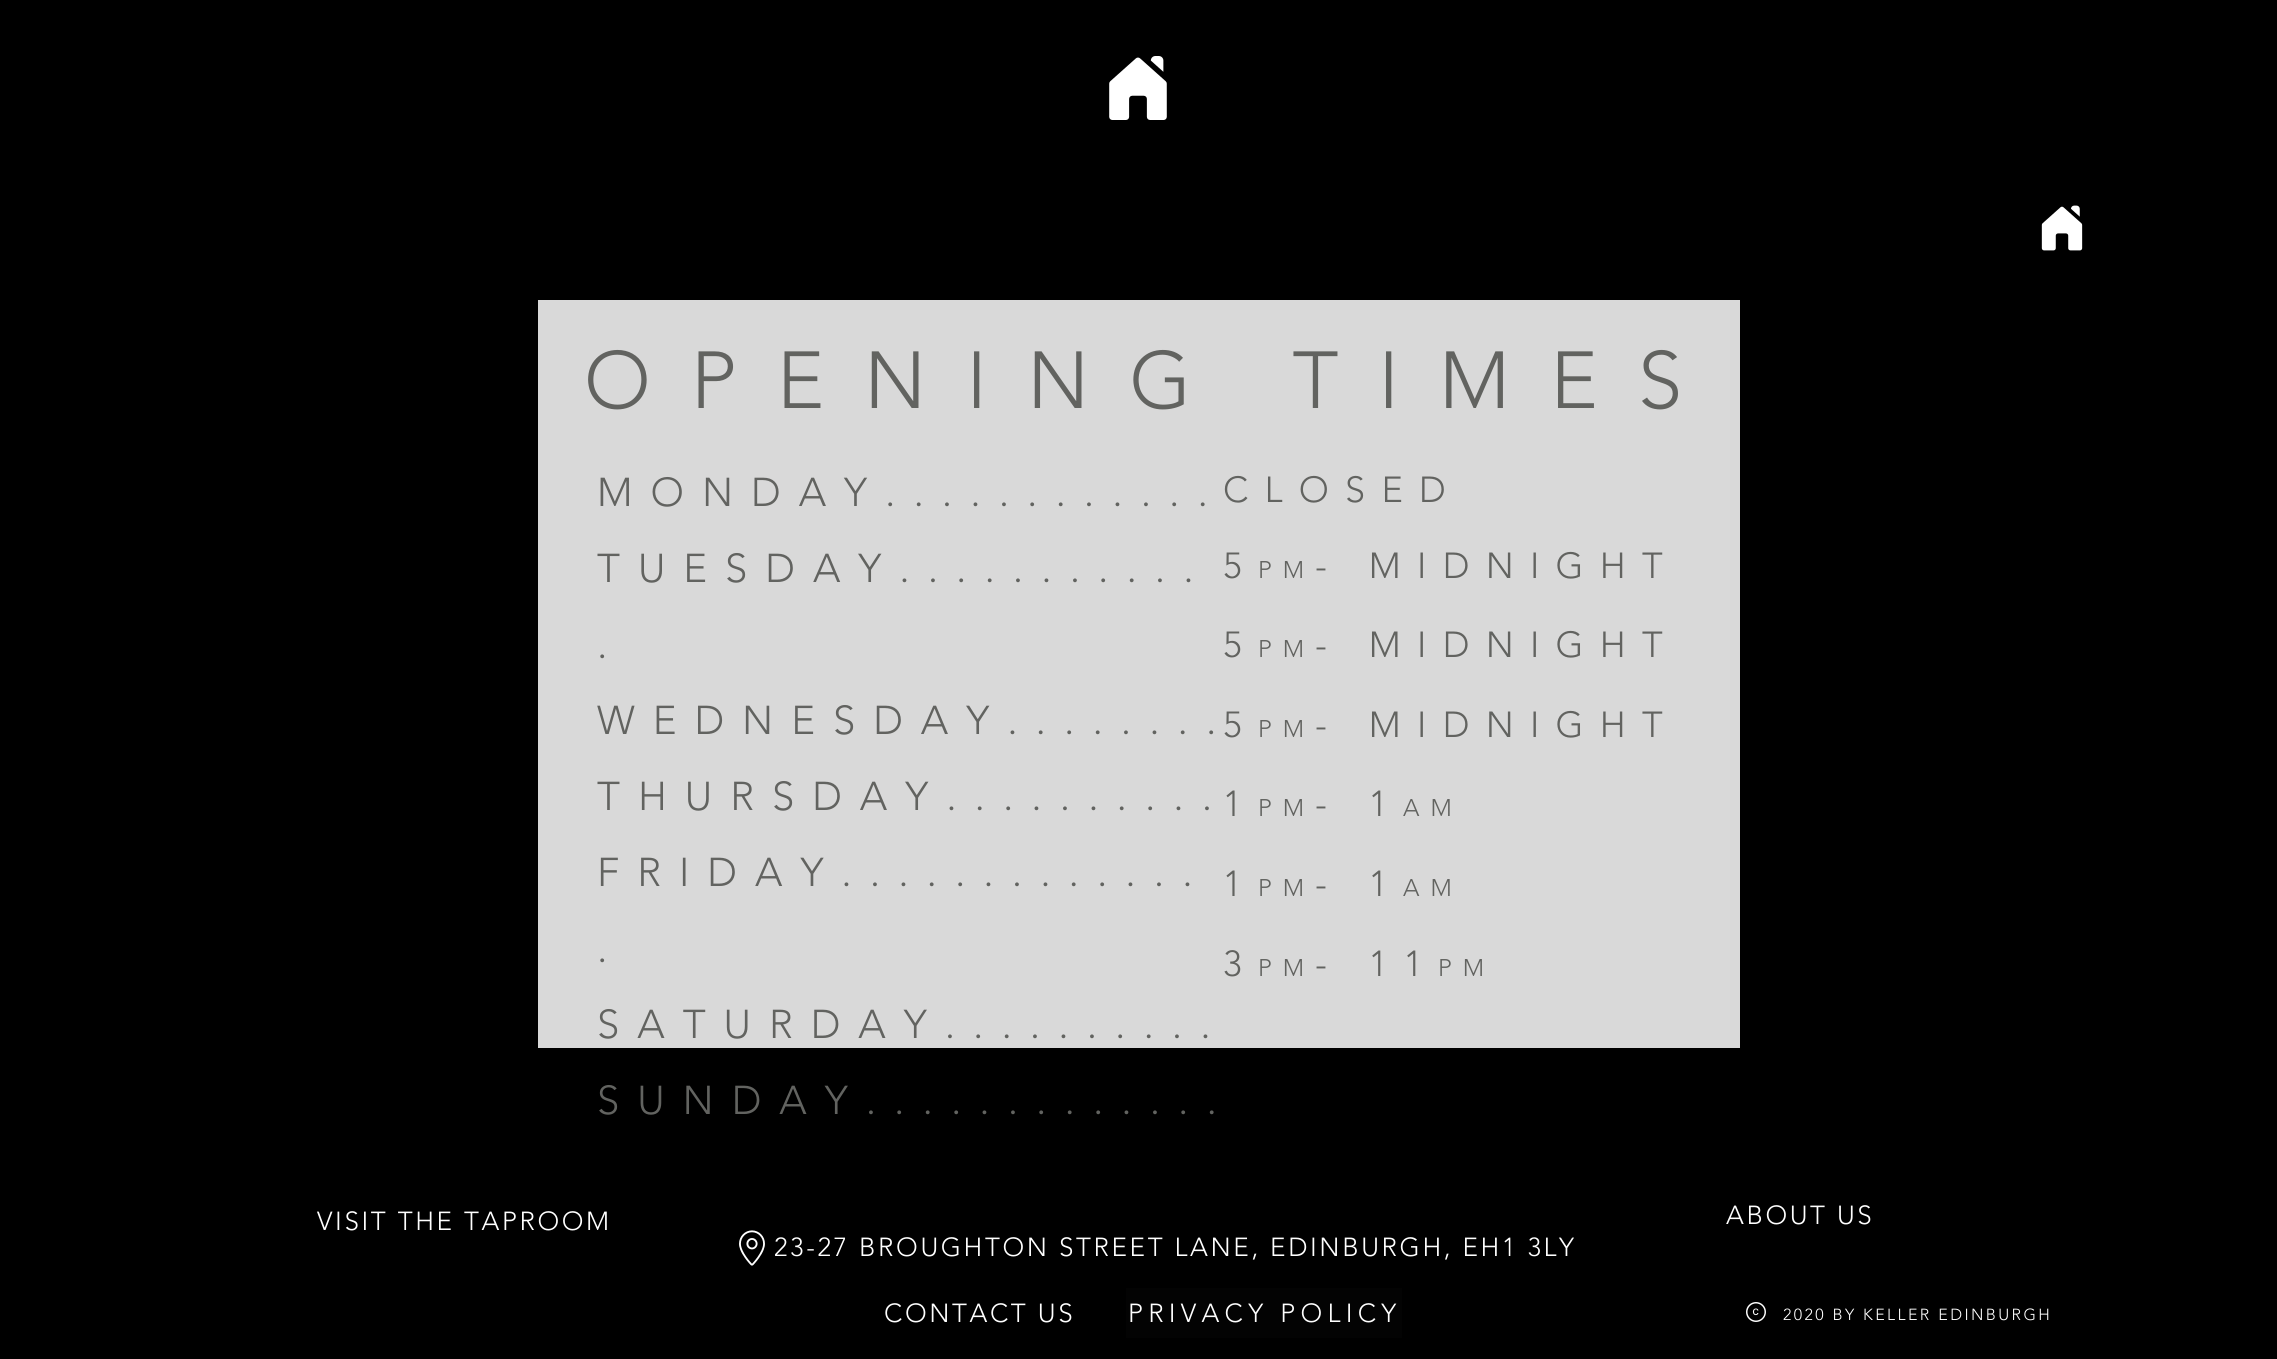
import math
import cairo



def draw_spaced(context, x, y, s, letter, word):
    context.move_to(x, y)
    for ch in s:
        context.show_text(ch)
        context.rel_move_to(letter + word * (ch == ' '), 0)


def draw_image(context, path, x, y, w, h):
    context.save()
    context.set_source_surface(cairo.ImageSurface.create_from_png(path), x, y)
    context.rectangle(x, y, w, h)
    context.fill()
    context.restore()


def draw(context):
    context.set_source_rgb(0, 0, 0)
    context.paint()
    draw_image(context, "images/1.png", 1109, 56, 58, 64)
    draw_image(context, "images/2.png", 2041, 205, 42, 46)
    context.set_source_rgb(217 / 255, 217 / 255, 217 / 255)
    context.rectangle(538, 300, 1202, 748)
    context.fill()
    draw_image(context, "images/3.png", 739, 1230, 26, 36)
    context.set_source_rgb(3 / 255, 3 / 255, 3 / 255)
    context.rectangle(1126, 1288, 276, 50)
    context.fill()
    draw_image(context, "images/4.png", 1746, 1302, 20, 20)
    context.select_font_face("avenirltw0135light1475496 Light")
    context.set_font_size(80)
    context.set_source_rgb(98 / 255, 99 / 255, 96 / 255)
    draw_spaced(context, 584, 408, "OPENING TIMES", 40, 0)
    context.set_font_size(40)
    draw_spaced(context, 597, 506, "MONDAY............", 18, 0)
    draw_spaced(context, 597, 582, "TUESDAY...........", 18, 0)
    draw_spaced(context, 597, 658, ".", 18, 0)
    draw_spaced(context, 597, 734, "WEDNESDAY........", 18, 0)
    draw_spaced(context, 597, 810, "THURSDAY..........", 18, 0)
    draw_spaced(context, 597, 886, "FRIDAY.............", 18, 0)
    draw_spaced(context, 597, 962, ".", 18, 0)
    draw_spaced(context, 597, 1038, "SATURDAY..........", 18, 0)
    draw_spaced(context, 597, 1114, "SUNDAY.............", 18, 0)
    context.set_font_size(36)
    draw_spaced(context, 1223, 502, "CLOSED", 16.25, 0)
    draw_spaced(context, 1223, 578, "5", 16.25, 0)
    context.set_font_size(24)
    draw_spaced(context, 1258, 578, "PM", 11, 0)
    context.set_font_size(36)
    draw_spaced(context, 1315, 578, "- MIDNIGHT", 16.25, 0)
    draw_spaced(context, 1223, 657, "5", 16.25, 0)
    context.set_font_size(24)
    draw_spaced(context, 1258, 657, "PM", 11, 0)
    context.set_font_size(36)
    draw_spaced(context, 1315, 657, "- MIDNIGHT", 16.25, 0)
    draw_spaced(context, 1223, 737, "5", 16.25, 0)
    context.set_font_size(24)
    draw_spaced(context, 1258, 737, "PM", 11, 0)
    context.set_font_size(36)
    draw_spaced(context, 1315, 737, "- MIDNIGHT", 16.25, 0)
    draw_spaced(context, 1223, 816, "1", 16.25, 0)
    context.set_font_size(24)
    draw_spaced(context, 1258, 816, "PM", 11, 0)
    context.set_font_size(36)
    draw_spaced(context, 1315, 816, "- 1", 16.25, 0)
    context.set_font_size(24)
    draw_spaced(context, 1403, 816, "AM", 11, 0)
    context.set_font_size(36)
    draw_spaced(context, 1223, 896, "1", 16.25, 0)
    context.set_font_size(24)
    draw_spaced(context, 1258, 896, "PM", 11, 0)
    context.set_font_size(36)
    draw_spaced(context, 1315, 896, "- 1", 16.25, 0)
    context.set_font_size(24)
    draw_spaced(context, 1403, 896, "AM", 11, 0)
    context.set_font_size(36)
    draw_spaced(context, 1223, 976, "3", 16.25, 0)
    context.set_font_size(24)
    draw_spaced(context, 1258, 976, "PM", 11, 0)
    context.set_font_size(36)
    draw_spaced(context, 1315, 976, "- 11", 16.25, 0)
    context.set_font_size(24)
    draw_spaced(context, 1438, 976, "PM", 11, 0)
    context.set_font_size(26)
    context.set_source_rgb(1, 1, 1)
    draw_spaced(context, 317, 1230, "VISIT THE TAPROOM", 2.6, 0)
    draw_spaced(context, 1726, 1224, "ABOUT US", 2.6, 0)
    draw_spaced(context, 774, 1256, "23-27 BROUGHTON STREET LANE, EDINBURGH, EH1 3LY", 2.6, 0)
    draw_spaced(context, 884, 1322, "CONTACT US", 2.6, 0)
    draw_spaced(context, 1128, 1322, "PRIVACY POLICY", 5.25, 0)
    context.set_font_size(16)
    draw_spaced(context, 1783, 1320, "2020 BY KELLER EDINBURGH", 2.4, 0)


surface = cairo.ImageSurface(cairo.Format.RGB24, 2277, 1359)
context = cairo.Context(surface)
options = cairo.FontOptions()
options.set_hint_metrics(cairo.HintMetrics.OFF)
options.set_hint_style(cairo.HintStyle.NONE)
context.set_font_options(options)
context.set_miter_limit(4)
draw(context)
surface.write_to_png("out.png")
